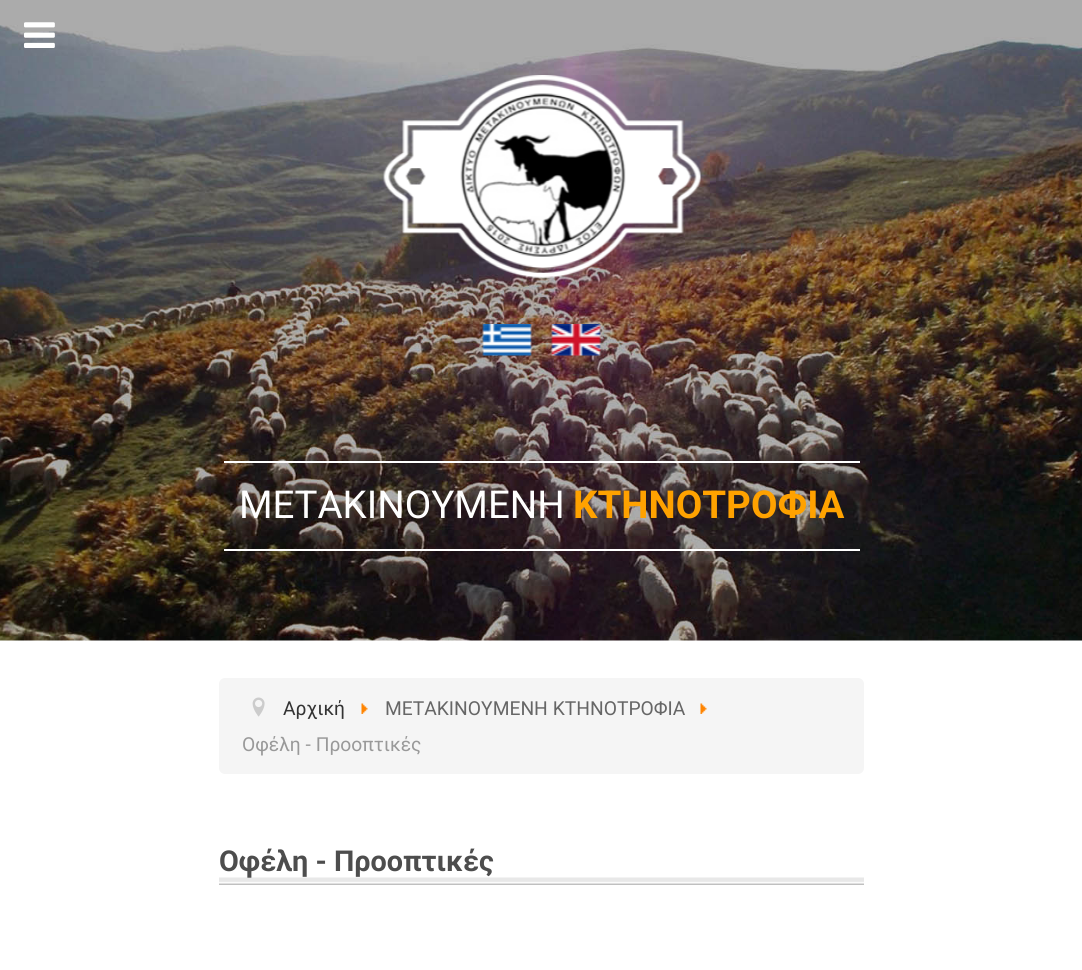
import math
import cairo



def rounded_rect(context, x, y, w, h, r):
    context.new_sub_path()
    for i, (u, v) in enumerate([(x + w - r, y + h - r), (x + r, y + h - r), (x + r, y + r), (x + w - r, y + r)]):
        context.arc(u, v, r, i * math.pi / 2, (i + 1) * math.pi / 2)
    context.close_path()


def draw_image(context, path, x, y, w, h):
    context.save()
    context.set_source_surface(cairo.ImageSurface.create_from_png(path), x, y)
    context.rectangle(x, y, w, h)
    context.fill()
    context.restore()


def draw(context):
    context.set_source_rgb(1, 1, 1)
    context.paint()
    draw_image(context, "images/2.png", 0, 0, 1082, 641)
    draw_image(context, "images/1.png", 24, 22, 31, 26)
    draw_image(context, "images/3.png", 383, 75, 318, 203)
    draw_image(context, "images/4.png", 482, 324, 50, 32)
    draw_image(context, "images/5.png", 551, 324, 50, 32)
    context.set_source_rgb(1, 1, 1)
    context.rectangle(224, 461, 636, 2)
    context.fill()
    context.rectangle(224, 549, 636, 2)
    context.fill()
    context.set_source_rgb(245 / 255, 245 / 255, 245 / 255)
    rounded_rect(context, 219, 678, 645, 96, 6)
    context.fill()
    draw_image(context, "images/6.png", 252, 697, 13, 20)
    draw_image(context, "images/7.png", 361, 703, 7, 11)
    draw_image(context, "images/7.png", 700, 703, 7, 11)
    draw_image(context, "images/8.png", 219, 877, 645, 8)
    context.select_font_face("Roboto")
    context.set_font_size(38.5)
    context.set_source_rgb(1, 1, 1)
    context.move_to(239, 518)
    context.show_text("ΜΕΤΑΚΙΝΟΥΜΕΝΗ")
    context.select_font_face("Roboto", cairo.FontSlant.NORMAL, cairo.FontWeight.BOLD)
    context.set_source_rgb(1, 162 / 255, 0)
    context.move_to(573, 518)
    context.show_text("ΚΤΗΝΟΤΡΟΦΙΑ")
    context.select_font_face("Roboto")
    context.set_font_size(19.25)
    context.set_source_rgb(51 / 255, 51 / 255, 51 / 255)
    context.move_to(283, 715)
    context.show_text("Αρχική")
    context.set_source_rgb(102 / 255, 102 / 255, 102 / 255)
    context.move_to(385, 715)
    context.show_text("ΜΕΤΑΚΙΝΟΥΜΕΝΗ ΚΤΗΝΟΤΡΟΦΙΑ")
    context.set_source_rgb(153 / 255, 153 / 255, 153 / 255)
    context.move_to(242, 751)
    context.show_text("Οφέλη - Προοπτικές")
    context.select_font_face("Roboto", cairo.FontSlant.NORMAL, cairo.FontWeight.BOLD)
    context.set_font_size(28.75)
    context.set_source_rgb(77 / 255, 77 / 255, 77 / 255)
    context.move_to(219, 871)
    context.show_text("Οφέλη - Προοπτικές")


surface = cairo.ImageSurface(cairo.Format.RGB24, 1082, 970)
context = cairo.Context(surface)
options = cairo.FontOptions()
options.set_hint_metrics(cairo.HintMetrics.OFF)
options.set_hint_style(cairo.HintStyle.NONE)
context.set_font_options(options)
context.set_miter_limit(4)
draw(context)
surface.write_to_png("out.png")
